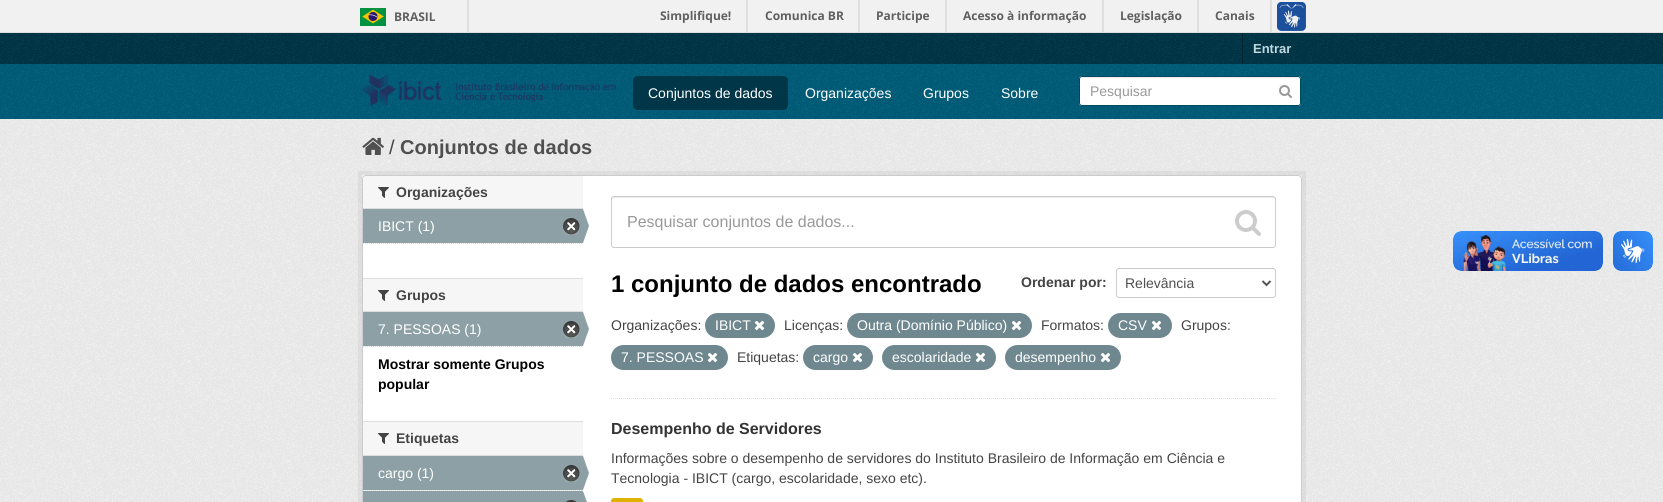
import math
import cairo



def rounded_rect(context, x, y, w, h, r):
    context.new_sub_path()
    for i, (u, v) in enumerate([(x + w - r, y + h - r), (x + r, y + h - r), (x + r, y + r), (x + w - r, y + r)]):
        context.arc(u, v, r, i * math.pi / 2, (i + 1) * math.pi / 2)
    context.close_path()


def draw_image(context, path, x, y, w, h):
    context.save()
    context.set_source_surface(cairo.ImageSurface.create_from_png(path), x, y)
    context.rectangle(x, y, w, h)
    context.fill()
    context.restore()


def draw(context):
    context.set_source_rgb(241 / 255, 241 / 255, 241 / 255)
    context.paint()
    context.set_source_rgb(223 / 255, 223 / 255, 223 / 255)
    context.rectangle(0, 32, 1663, 1)
    context.fill()
    context.rectangle(467, 0, 2, 32)
    context.fill()
    draw_image(context, "images/1.png", 360, 8, 26, 18)
    context.rectangle(746, 0, 2, 32)
    context.fill()
    context.rectangle(858, 0, 2, 32)
    context.fill()
    context.rectangle(945, 0, 2, 32)
    context.fill()
    context.rectangle(1102, 0, 2, 32)
    context.fill()
    context.rectangle(1197, 0, 2, 32)
    context.fill()
    context.rectangle(1270, 0, 2, 32)
    context.fill()
    draw_image(context, "images/2.png", 1277, 2, 29, 29)
    context.set_source_rgb(0, 54 / 255, 71 / 255)
    context.rectangle(0, 33, 1663, 31)
    context.fill()
    draw_image(context, "images/3.png", 0, 33, 1663, 31)
    context.set_source_rgb(0, 35 / 255, 46 / 255)
    context.rectangle(1242, 33, 1, 31)
    context.fill()
    context.set_source_rgb(0, 93 / 255, 122 / 255)
    context.rectangle(0, 64, 1663, 55)
    context.fill()
    draw_image(context, "images/4.png", 0, 64, 1663, 55)
    draw_image(context, "images/5.png", 362, 75, 254, 31)
    context.set_source_rgb(0, 54 / 255, 71 / 255)
    rounded_rect(context, 633, 76, 155, 34, 5)
    context.fill()
    context.set_source_rgb(1, 1, 1)
    rounded_rect(context, 1079, 76, 222, 30, 3)
    context.fill()
    context.set_source_rgb(236 / 255, 236 / 255, 236 / 255)
    context.new_path()
    context.move_to(1082, 78)
    context.line_to(1298, 78)
    context.curve_to(1299, 78, 1300, 79, 1300, 80)
    context.curve_to(1300, 79, 1300, 77, 1298, 77)
    context.line_to(1082, 77)
    context.line_to(1081, 78)
    context.line_to(1080, 80)
    context.curve_to(1080, 79, 1081, 78, 1082, 78)
    context.close_path()
    context.fill()
    rounded_rect(context, 1079.5, 76.5, 221, 29, 2.5)
    context.set_source_rgb(0, 74 / 255, 97 / 255)
    context.set_line_width(1)
    context.stroke()
    draw_image(context, "images/6.png", 1279, 85, 13, 13)
    context.set_source_rgb(238 / 255, 238 / 255, 238 / 255)
    context.rectangle(0, 119, 1663, 383)
    context.fill()
    draw_image(context, "images/7.png", 0, 119, 1663, 383)
    draw_image(context, "images/8.png", 362, 137, 22, 18)
    context.rectangle(360, 173, 944, 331)
    context.set_source_rgba(0, 0, 0, 0.05)
    context.set_line_width(4)
    context.stroke()
    context.set_source_rgb(1, 1, 1)
    rounded_rect(context, 362, 175, 940, 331, 4)
    context.fill()
    context.rectangle(363, 175, 2, 1)
    context.fill()
    rounded_rect(context, 362.5, 175.5, 939, 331, 3.5)
    context.set_source_rgb(204 / 255, 204 / 255, 204 / 255)
    context.set_line_width(1)
    context.stroke()
    context.set_source_rgb(246 / 255, 246 / 255, 246 / 255)
    context.new_path()
    context.move_to(366, 176)
    context.line_to(583, 176)
    context.line_to(583, 209)
    context.line_to(363, 209)
    context.line_to(363, 179)
    context.curve_to(363, 177.5, 364.5, 176, 366, 176)
    context.close_path()
    context.fill()
    context.set_source_rgb(221 / 255, 221 / 255, 221 / 255)
    context.rectangle(363, 208, 220, 1)
    context.fill()
    draw_image(context, "images/9.png", 378, 187, 11, 11)
    context.set_source_rgb(140 / 255, 160 / 255, 166 / 255)
    context.rectangle(363, 209, 220, 34)
    context.fill()
    draw_image(context, "images/10.png", 563, 218, 17, 17)
    draw_image(context, "images/11.png", 583, 209, 6, 34)
    context.new_path()
    context.move_to(363, 243.5)
    context.line_to(583, 243.5)
    context.set_source_rgb(221 / 255, 221 / 255, 221 / 255)
    context.set_dash([1, 1])
    context.stroke()
    context.set_source_rgb(246 / 255, 246 / 255, 246 / 255)
    context.rectangle(363, 279, 220, 32)
    context.fill()
    context.set_source_rgb(221 / 255, 221 / 255, 221 / 255)
    context.rectangle(363, 278, 220, 1)
    context.fill()
    context.rectangle(363, 311, 220, 1)
    context.fill()
    draw_image(context, "images/9.png", 378, 290, 11, 11)
    context.set_source_rgb(140 / 255, 160 / 255, 166 / 255)
    context.rectangle(363, 312, 220, 34)
    context.fill()
    draw_image(context, "images/10.png", 563, 321, 17, 17)
    draw_image(context, "images/11.png", 583, 312, 6, 34)
    context.new_path()
    context.move_to(363, 346.5)
    context.line_to(583, 346.5)
    context.set_source_rgb(221 / 255, 221 / 255, 221 / 255)
    context.stroke()
    context.set_source_rgb(246 / 255, 246 / 255, 246 / 255)
    context.rectangle(363, 422, 220, 33)
    context.fill()
    context.set_source_rgb(221 / 255, 221 / 255, 221 / 255)
    context.rectangle(363, 421, 220, 1)
    context.fill()
    context.rectangle(363, 455, 220, 1)
    context.fill()
    draw_image(context, "images/9.png", 378, 433, 11, 11)
    context.set_source_rgb(246 / 255, 246 / 255, 246 / 255)
    context.rectangle(364, 490, 219, 1)
    context.fill()
    context.new_path()
    context.move_to(363, 490.5)
    context.line_to(583, 490.5)
    context.set_source_rgb(221 / 255, 221 / 255, 221 / 255)
    context.stroke()
    context.set_source_rgb(140 / 255, 160 / 255, 166 / 255)
    context.rectangle(363, 456, 220, 34)
    context.fill()
    draw_image(context, "images/10.png", 563, 465, 17, 17)
    draw_image(context, "images/11.png", 583, 456, 6, 34)
    context.rectangle(363, 491, 220, 11)
    context.fill()
    draw_image(context, "images/12.png", 566, 500, 11, 2)
    draw_image(context, "images/13.png", 583, 491, 4, 11)
    context.new_path()
    context.move_to(611, 398.5)
    context.line_to(1276, 398.5)
    context.set_source_rgb(221 / 255, 221 / 255, 221 / 255)
    context.stroke()
    context.set_source_rgb(236 / 255, 236 / 255, 236 / 255)
    context.new_path()
    context.move_to(614, 198)
    context.line_to(1273, 198)
    context.curve_to(1274, 198, 1275, 199, 1275, 200)
    context.curve_to(1275, 199, 1275, 197, 1273, 197)
    context.line_to(614, 197)
    context.curve_to(612, 197, 612, 199, 612, 200)
    context.curve_to(612, 199, 613, 198, 614, 198)
    context.close_path()
    context.fill()
    rounded_rect(context, 611.5, 196.5, 664, 51, 2.5)
    context.set_source_rgb(204 / 255, 204 / 255, 204 / 255)
    context.set_dash([])
    context.stroke()
    draw_image(context, "images/14.png", 1235, 210, 26, 26)
    rounded_rect(context, 1116.5, 268.5, 159, 29, 2.5)
    context.stroke()
    context.new_path()
    context.move_to(1262.5, 281)
    context.line_to(1266.5, 285)
    context.line_to(1270.5, 281)
    context.set_source_rgb(85 / 255, 85 / 255, 85 / 255)
    context.set_line_width(2)
    context.stroke()
    context.set_source_rgb(111 / 255, 136 / 255, 144 / 255)
    rounded_rect(context, 705, 313, 70, 25, 12.5)
    context.fill()
    draw_image(context, "images/15.png", 754, 320, 11, 11)
    rounded_rect(context, 847, 313, 185, 25, 12.5)
    context.fill()
    draw_image(context, "images/15.png", 1011, 320, 11, 11)
    rounded_rect(context, 1108, 313, 64, 25, 12.5)
    context.fill()
    draw_image(context, "images/15.png", 1151, 320, 11, 11)
    rounded_rect(context, 611, 345, 117, 25, 12.5)
    context.fill()
    draw_image(context, "images/15.png", 707, 352, 11, 11)
    rounded_rect(context, 803, 345, 70, 25, 12.5)
    context.fill()
    draw_image(context, "images/15.png", 852, 352, 11, 11)
    rounded_rect(context, 882, 345, 114, 25, 12.5)
    context.fill()
    draw_image(context, "images/15.png", 975, 352, 11, 11)
    rounded_rect(context, 1005, 345, 116, 25, 12.5)
    context.fill()
    draw_image(context, "images/15.png", 1100, 352, 11, 11)
    context.set_source_rgb(223 / 255, 177 / 255, 0)
    rounded_rect(context, 611, 498, 32, 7, 3)
    context.fill()
    draw_image(context, "images/16.png", 1453, 231, 150, 40)
    draw_image(context, "images/17.png", 1613, 231, 40, 40)
    context.select_font_face("Open Sans", cairo.FontSlant.NORMAL, cairo.FontWeight.BOLD)
    context.set_font_size(12)
    context.set_source_rgb(96 / 255, 96 / 255, 96 / 255)
    context.move_to(394, 21)
    context.show_text("BRASIL")
    context.move_to(660, 20)
    context.show_text("Simplifique!")
    context.move_to(765, 20)
    context.show_text("Comunica BR")
    context.move_to(876, 20)
    context.show_text("Participe")
    context.move_to(963, 20)
    context.show_text("Acesso à informação")
    context.move_to(1120, 20)
    context.show_text("Legislação")
    context.move_to(1215, 20)
    context.show_text("Canais")
    context.select_font_face("Liberation Sans", cairo.FontSlant.NORMAL, cairo.FontWeight.BOLD)
    context.set_font_size(13)
    context.set_source_rgb(191 / 255, 215 / 255, 222 / 255)
    context.move_to(1253, 53)
    context.show_text("Entrar")
    context.select_font_face("Liberation Sans")
    context.set_font_size(14)
    context.set_source_rgb(1, 1, 1)
    context.move_to(648, 98)
    context.show_text("Conjuntos de dados")
    context.move_to(805, 98)
    context.show_text("Organizações")
    context.move_to(923, 98)
    context.show_text("Grupos")
    context.move_to(1001, 98)
    context.show_text("Sobre")
    context.set_source_rgb(153 / 255, 153 / 255, 153 / 255)
    context.move_to(1090, 96)
    context.show_text("Pesquisar")
    context.set_font_size(20)
    context.set_source_rgb(68 / 255, 68 / 255, 68 / 255)
    context.move_to(389, 154)
    context.show_text("/")
    context.select_font_face("Liberation Sans", cairo.FontSlant.NORMAL, cairo.FontWeight.BOLD)
    context.set_source_rgb(80 / 255, 80 / 255, 80 / 255)
    context.move_to(400, 154)
    context.show_text("Conjuntos de dados")
    context.set_font_size(14)
    context.set_source_rgb(68 / 255, 68 / 255, 68 / 255)
    context.move_to(396, 197)
    context.show_text("Organizações")
    context.select_font_face("Liberation Sans")
    context.set_source_rgb(1, 1, 1)
    context.move_to(378, 231)
    context.show_text("IBICT (1)")
    context.select_font_face("Liberation Sans", cairo.FontSlant.NORMAL, cairo.FontWeight.BOLD)
    context.set_source_rgb(68 / 255, 68 / 255, 68 / 255)
    context.move_to(396, 300)
    context.show_text("Grupos")
    context.select_font_face("Liberation Sans")
    context.set_source_rgb(1, 1, 1)
    context.move_to(378, 334)
    context.show_text("7. PESSOAS (1)")
    context.select_font_face("Liberation Sans", cairo.FontSlant.NORMAL, cairo.FontWeight.BOLD)
    context.set_source_rgb(0, 0, 0)
    context.move_to(378, 369)
    context.show_text("Mostrar somente Grupos")
    context.move_to(378, 389)
    context.show_text("popular")
    context.set_source_rgb(68 / 255, 68 / 255, 68 / 255)
    context.move_to(396, 443)
    context.show_text("Etiquetas")
    context.select_font_face("Liberation Sans")
    context.set_source_rgb(1, 1, 1)
    context.move_to(378, 478)
    context.show_text("cargo (1)")
    context.set_font_size(16)
    context.set_source_rgb(153 / 255, 153 / 255, 153 / 255)
    context.move_to(627, 227)
    context.show_text("Pesquisar conjuntos de dados...")
    context.select_font_face("Liberation Sans", cairo.FontSlant.NORMAL, cairo.FontWeight.BOLD)
    context.set_font_size(24)
    context.set_source_rgb(0, 0, 0)
    context.move_to(611, 292)
    context.show_text("1 conjunto de dados encontrado")
    context.set_font_size(14)
    context.set_source_rgb(68 / 255, 68 / 255, 68 / 255)
    context.move_to(1021, 287)
    context.show_text("Ordenar por:")
    context.select_font_face("Liberation Sans")
    context.set_source_rgb(80 / 255, 80 / 255, 80 / 255)
    context.move_to(1125, 288)
    context.show_text("Relevância")
    context.set_source_rgb(68 / 255, 68 / 255, 68 / 255)
    context.move_to(611, 330)
    context.show_text("Organizações:")
    context.set_source_rgb(1, 1, 1)
    context.move_to(715, 330)
    context.show_text("IBICT")
    context.set_source_rgb(68 / 255, 68 / 255, 68 / 255)
    context.move_to(784, 330)
    context.show_text("Licenças:")
    context.set_source_rgb(1, 1, 1)
    context.move_to(857, 330)
    context.show_text("Outra (Domínio Público)")
    context.set_source_rgb(68 / 255, 68 / 255, 68 / 255)
    context.move_to(1041, 330)
    context.show_text("Formatos:")
    context.set_source_rgb(1, 1, 1)
    context.move_to(1118, 330)
    context.show_text("CSV")
    context.set_source_rgb(68 / 255, 68 / 255, 68 / 255)
    context.move_to(1181, 330)
    context.show_text("Grupos:")
    context.set_source_rgb(1, 1, 1)
    context.move_to(621, 362)
    context.show_text("7. PESSOAS")
    context.set_source_rgb(68 / 255, 68 / 255, 68 / 255)
    context.move_to(737, 362)
    context.show_text("Etiquetas:")
    context.set_source_rgb(1, 1, 1)
    context.move_to(813, 362)
    context.show_text("cargo")
    context.move_to(892, 362)
    context.show_text("escolaridade")
    context.move_to(1015, 362)
    context.show_text("desempenho")
    context.select_font_face("Liberation Sans", cairo.FontSlant.NORMAL, cairo.FontWeight.BOLD)
    context.set_font_size(16)
    context.set_source_rgb(51 / 255, 51 / 255, 51 / 255)
    context.move_to(611, 434)
    context.show_text("Desempenho de Servidores")
    context.select_font_face("Liberation Sans")
    context.set_font_size(14)
    context.set_source_rgb(68 / 255, 68 / 255, 68 / 255)
    context.move_to(611, 463)
    context.show_text("Informações sobre o desempenho de servidores do Instituto Brasileiro de Informação em Ciência e")
    context.move_to(611, 483)
    context.show_text("Tecnologia - IBICT (cargo, escolaridade, sexo etc).")


surface = cairo.ImageSurface(cairo.Format.RGB24, 1663, 502)
context = cairo.Context(surface)
options = cairo.FontOptions()
options.set_hint_metrics(cairo.HintMetrics.OFF)
options.set_hint_style(cairo.HintStyle.NONE)
context.set_font_options(options)
context.set_miter_limit(4)
draw(context)
surface.write_to_png("out.png")
